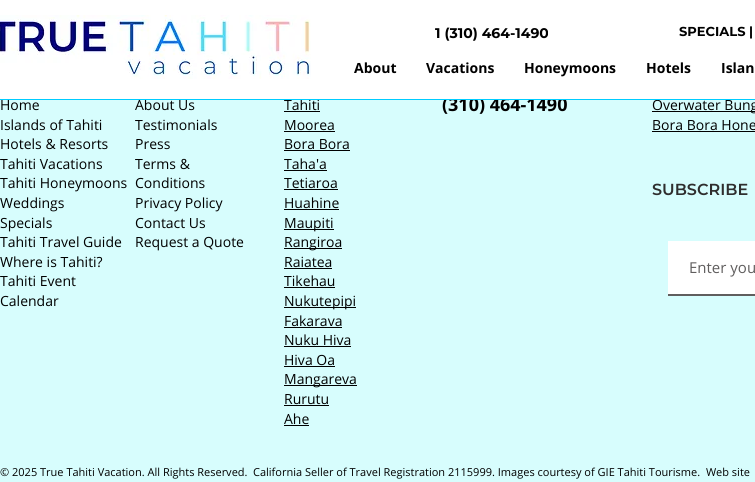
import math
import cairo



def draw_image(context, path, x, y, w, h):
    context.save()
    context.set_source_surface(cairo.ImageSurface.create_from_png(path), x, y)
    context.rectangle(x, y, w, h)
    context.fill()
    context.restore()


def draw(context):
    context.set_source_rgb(215 / 255, 253 / 255, 253 / 255)
    context.paint()
    context.set_source_rgb(0, 0, 0)
    context.rectangle(284, 111, 36, 1)
    context.fill()
    context.rectangle(284, 131, 51, 1)
    context.fill()
    context.rectangle(284, 150, 66, 1)
    context.fill()
    context.rectangle(284, 170, 43, 1)
    context.fill()
    context.rectangle(284, 189, 54, 1)
    context.fill()
    context.rectangle(284, 209, 55, 1)
    context.fill()
    context.rectangle(284, 229, 50, 1)
    context.fill()
    context.rectangle(284, 248, 58, 1)
    context.fill()
    context.rectangle(284, 268, 48, 1)
    context.fill()
    context.rectangle(284, 287, 51, 1)
    context.fill()
    context.rectangle(284, 307, 72, 1)
    context.fill()
    context.rectangle(284, 327, 58, 1)
    context.fill()
    context.rectangle(284, 346, 67, 1)
    context.fill()
    context.rectangle(284, 366, 51, 1)
    context.fill()
    context.rectangle(284, 385, 73, 1)
    context.fill()
    context.rectangle(284, 405, 45, 1)
    context.fill()
    context.rectangle(284, 425, 25, 1)
    context.fill()
    context.rectangle(652, 111, 103, 1)
    context.fill()
    context.rectangle(652, 131, 103, 1)
    context.fill()
    context.set_source_rgb(1, 1, 1)
    context.rectangle(668, 241, 87, 53)
    context.fill()
    context.set_source_rgb(96 / 255, 94 / 255, 94 / 255)
    context.rectangle(668, 294, 87, 2)
    context.fill()
    context.select_font_face("Open Sans")
    context.set_font_size(14)
    context.set_source_rgb(0, 0, 0)
    context.move_to(0, 110)
    context.show_text("Home")
    context.move_to(0, 130)
    context.show_text("Islands of Tahiti")
    context.move_to(0, 149)
    context.show_text("Hotels & Resorts")
    context.move_to(0, 169)
    context.show_text("Tahiti Vacations")
    context.move_to(0, 188)
    context.show_text("Tahiti Honeymoons")
    context.move_to(0, 208)
    context.show_text("Weddings")
    context.move_to(0, 228)
    context.show_text("Specials")
    context.move_to(0, 247)
    context.show_text("Tahiti Travel Guide")
    context.move_to(0, 267)
    context.show_text("Where is Tahiti?")
    context.move_to(0, 286)
    context.show_text("Tahiti Event")
    context.move_to(0, 306)
    context.show_text("Calendar")
    context.move_to(135, 110)
    context.show_text("About Us")
    context.move_to(135, 130)
    context.show_text("Testimonials")
    context.move_to(135, 149)
    context.show_text("Press")
    context.move_to(135, 169)
    context.show_text("Terms &")
    context.move_to(135, 188)
    context.show_text("Conditions")
    context.move_to(135, 208)
    context.show_text("Privacy Policy")
    context.move_to(135, 228)
    context.show_text("Contact Us")
    context.move_to(135, 247)
    context.show_text("Request a Quote")
    context.move_to(284, 110)
    context.show_text("Tahiti")
    context.move_to(284, 130)
    context.show_text("Moorea")
    context.move_to(284, 149)
    context.show_text("Bora Bora")
    context.move_to(284, 169)
    context.show_text("Taha'a")
    context.move_to(284, 188)
    context.show_text("Tetiaroa")
    context.move_to(284, 208)
    context.show_text("Huahine")
    context.move_to(284, 228)
    context.show_text("Maupiti")
    context.move_to(284, 247)
    context.show_text("Rangiroa")
    context.move_to(284, 267)
    context.show_text("Raiatea")
    context.move_to(284, 286)
    context.show_text("Tikehau")
    context.move_to(284, 306)
    context.show_text("Nukutepipi")
    context.move_to(284, 326)
    context.show_text("Fakarava")
    context.move_to(284, 345)
    context.show_text("Nuku Hiva")
    context.move_to(284, 365)
    context.show_text("Hiva Oa")
    context.move_to(284, 384)
    context.show_text("Mangareva")
    context.move_to(284, 404)
    context.show_text("Rurutu")
    context.move_to(284, 424)
    context.show_text("Ahe")
    context.select_font_face("Open Sans", cairo.FontSlant.NORMAL, cairo.FontWeight.BOLD)
    context.set_font_size(18)
    context.move_to(442, 111)
    context.show_text("(310) 464-1490")
    context.set_source_rgb(1, 1, 1)
    context.rectangle(0, 0, 755, 99)
    context.fill()
    context.set_font_size(14)
    context.set_source_rgb(0, 0, 0)
    context.move_to(721, 73)
    context.show_text("Islan")
    context.move_to(646, 73)
    context.show_text("Hotels")
    context.move_to(524, 73)
    context.show_text("Honeymoons")
    context.move_to(426, 73)
    context.show_text("Vacations")
    context.move_to(354, 73)
    context.show_text("About")
    context.select_font_face("Montserrat", cairo.FontSlant.NORMAL, cairo.FontWeight.BOLD)
    context.set_font_size(13)
    context.move_to(679, 36)
    context.show_text("SPECIALS |")
    context.set_font_size(14)
    context.move_to(435, 38)
    context.show_text("1 (310) 464-1490")
    draw_image(context, "images/1.png", 0, 15, 311, 64)
    context.select_font_face("Open Sans")
    context.move_to(652, 110)
    context.show_text("Overwater Bung")
    context.set_source_rgb(0, 204 / 255, 1)
    context.rectangle(0, 99, 755, 1)
    context.fill()
    context.set_source_rgb(0, 0, 0)
    context.move_to(652, 130)
    context.show_text("Bora Bora Hone")
    context.select_font_face("Montserrat SemiBold")
    context.set_font_size(16)
    context.set_source_rgb(47 / 255, 46 / 255, 46 / 255)
    context.move_to(652, 195)
    context.show_text("SUBSCRIBE")
    context.select_font_face("Open Sans")
    context.set_font_size(15)
    context.set_source_rgb(96 / 255, 94 / 255, 94 / 255)
    context.move_to(689, 273)
    context.show_text("Enter you")
    context.set_font_size(11)
    context.set_source_rgb(0, 0, 0)
    context.move_to(0, 476)
    context.show_text("© 2025 True Tahiti Vacation. All Rights Reserved.")
    context.move_to(253, 476)
    context.show_text("California Seller of Travel Registration 2115999. Images courtesy of GIE Tahiti Tourisme.  Web site")


surface = cairo.ImageSurface(cairo.Format.RGB24, 755, 482)
context = cairo.Context(surface)
options = cairo.FontOptions()
options.set_hint_metrics(cairo.HintMetrics.OFF)
options.set_hint_style(cairo.HintStyle.NONE)
context.set_font_options(options)
context.set_miter_limit(4)
draw(context)
surface.write_to_png("out.png")
